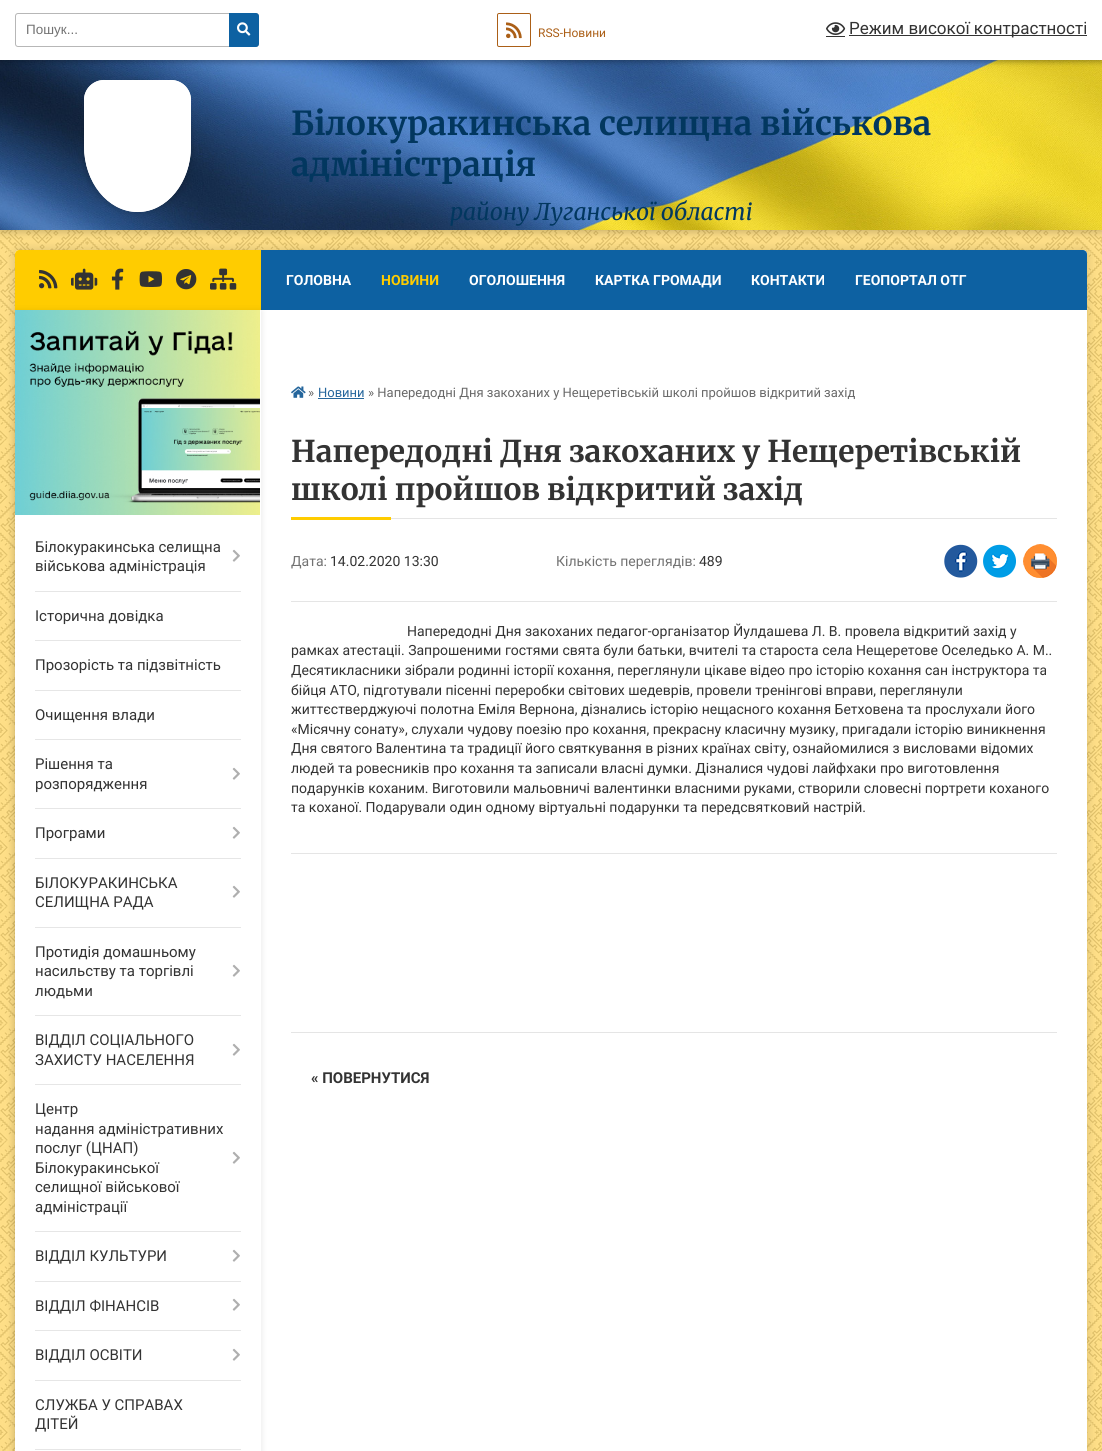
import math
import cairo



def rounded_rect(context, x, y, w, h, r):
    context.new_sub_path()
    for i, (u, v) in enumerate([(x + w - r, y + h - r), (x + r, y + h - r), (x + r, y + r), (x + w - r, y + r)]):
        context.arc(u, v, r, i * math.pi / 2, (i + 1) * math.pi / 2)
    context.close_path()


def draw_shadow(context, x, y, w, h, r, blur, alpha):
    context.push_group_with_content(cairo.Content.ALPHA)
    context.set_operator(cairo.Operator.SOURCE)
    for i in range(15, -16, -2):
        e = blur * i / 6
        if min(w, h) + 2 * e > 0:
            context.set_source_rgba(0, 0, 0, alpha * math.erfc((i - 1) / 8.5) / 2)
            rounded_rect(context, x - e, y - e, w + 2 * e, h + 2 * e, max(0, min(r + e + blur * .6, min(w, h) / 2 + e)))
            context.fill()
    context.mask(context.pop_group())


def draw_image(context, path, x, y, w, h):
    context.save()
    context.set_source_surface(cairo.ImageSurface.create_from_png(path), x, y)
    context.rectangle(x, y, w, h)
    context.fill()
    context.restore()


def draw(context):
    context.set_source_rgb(1, 218 / 255, 117 / 255)
    context.paint()
    draw_image(context, "images/1.png", 0, 230, 1102, 1221)
    context.set_source_rgb(0, 0, 0)
    draw_shadow(context, 0, 60, 1102, 170, 0, 5, 0.3)
    draw_image(context, "images/5.png", 0, 60, 1102, 170)
    draw_shadow(context, 0, 1, 1102, 60, 0, 3.5, 0.4)
    context.set_source_rgb(1, 1, 1)
    context.rectangle(0, 0, 1102, 60)
    context.fill()
    rounded_rect(context, 15.5, 13.5, 243, 33, 2.5)
    context.set_source_rgb(183 / 255, 183 / 255, 183 / 255)
    context.set_line_width(1)
    context.stroke()
    context.set_source_rgb(13 / 255, 97 / 255, 162 / 255)
    context.new_path()
    context.move_to(229, 13)
    context.line_to(256, 13)
    context.curve_to(257.5, 13, 259, 14.5, 259, 16)
    context.line_to(259, 44)
    context.curve_to(259, 45.5, 257.5, 47, 256, 47)
    context.line_to(229, 47)
    context.close_path()
    context.fill()
    draw_image(context, "images/2.png", 237, 22, 14, 14)
    rounded_rect(context, 497.5, 13.5, 33, 33, 1.5)
    context.set_source_rgb(171 / 255, 95 / 255, 23 / 255)
    context.stroke()
    draw_image(context, "images/3.png", 506, 22, 16, 17)
    draw_image(context, "images/4.png", 826, 22, 20, 13)
    context.set_source_rgb(51 / 255, 51 / 255, 51 / 255)
    context.rectangle(826, 36, 19, 1)
    context.fill()
    context.rectangle(849, 35, 238, 1)
    context.fill()
    context.set_source_rgb(0, 0, 0)
    draw_shadow(context, 84, 80, 107, 132, 53.5, 3, 0.15)
    context.set_source_rgb(1, 1, 1)
    context.new_path()
    context.move_to(104, 80)
    context.line_to(171, 80)
    context.curve_to(182, 80, 191, 89, 191, 100)
    context.line_to(191, 146)
    context.curve_to(191, 182, 167, 212, 138, 212)
    context.curve_to(108, 212, 84, 182, 84, 146)
    context.line_to(84, 100)
    context.curve_to(84, 89, 93, 80, 104, 80)
    context.close_path()
    context.fill()
    context.new_path()
    context.move_to(104, 81)
    context.line_to(171, 81)
    context.curve_to(181.5, 81, 190, 89.5, 190, 100)
    context.line_to(190, 146)
    context.curve_to(190, 182, 166.5, 211, 137.5, 211)
    context.curve_to(108.5, 211, 85, 182, 85, 146)
    context.line_to(85, 100)
    context.curve_to(85, 89.5, 93.5, 81, 104, 81)
    context.close_path()
    context.set_line_width(2)
    context.stroke()
    context.set_source_rgb(0, 0, 0)
    draw_shadow(context, 15, 250, 1072, 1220, 4, 5, 0.15)
    context.set_source_rgb(1, 1, 1)
    rounded_rect(context, 15, 250, 1072, 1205, 4)
    context.fill()
    context.set_source_rgb(1, 204 / 255, 0)
    context.new_path()
    context.move_to(19, 250)
    context.line_to(261, 250)
    context.line_to(261, 310)
    context.line_to(15, 310)
    context.line_to(15, 254)
    context.curve_to(15, 252, 17, 250, 19, 250)
    context.close_path()
    context.fill()
    draw_image(context, "images/6.png", 39, 269, 19, 20)
    draw_image(context, "images/7.png", 71, 268, 27, 22)
    draw_image(context, "images/8.png", 111, 268, 13, 22)
    draw_image(context, "images/9.png", 139, 271, 23, 16)
    draw_image(context, "images/10.png", 176, 269, 21, 21)
    draw_image(context, "images/11.png", 210, 268, 27, 22)
    context.set_source_rgb(13 / 255, 97 / 255, 162 / 255)
    context.new_path()
    context.move_to(261, 250)
    context.line_to(1083, 250)
    context.curve_to(1085, 250, 1087, 252, 1087, 254)
    context.line_to(1087, 310)
    context.line_to(261, 310)
    context.close_path()
    context.fill()
    context.save()
    context.set_fill_rule(cairo.FillRule.EVEN_ODD)
    context.new_path()
    context.move_to(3, 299)
    context.line_to(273, 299)
    context.line_to(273, 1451)
    context.line_to(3, 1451)
    context.close_path()
    context.move_to(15, 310)
    context.line_to(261, 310)
    context.line_to(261, 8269)
    context.line_to(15, 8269)
    context.close_path()
    context.clip()
    context.set_source_rgb(0, 0, 0)
    draw_shadow(context, 15, 311, 246, 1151, 0, 3.5, 0.1)
    context.restore()
    draw_image(context, "images/12.png", 15, 310, 245, 205)
    context.set_source_rgb(230 / 255, 230 / 255, 230 / 255)
    context.rectangle(35, 591, 206, 1)
    context.fill()
    draw_image(context, "images/13.png", 232, 549, 8, 13)
    context.rectangle(35, 640, 206, 1)
    context.fill()
    context.rectangle(35, 690, 206, 1)
    context.fill()
    context.rectangle(35, 739, 206, 1)
    context.fill()
    context.rectangle(35, 808, 206, 1)
    context.fill()
    draw_image(context, "images/13.png", 232, 767, 8, 13)
    context.rectangle(35, 858, 206, 1)
    context.fill()
    draw_image(context, "images/13.png", 232, 826, 8, 13)
    context.rectangle(35, 927, 206, 1)
    context.fill()
    draw_image(context, "images/13.png", 232, 885, 8, 13)
    context.rectangle(35, 1015, 206, 1)
    context.fill()
    draw_image(context, "images/13.png", 232, 964, 8, 13)
    context.rectangle(35, 1084, 206, 1)
    context.fill()
    draw_image(context, "images/13.png", 232, 1043, 8, 13)
    context.rectangle(35, 1231, 206, 1)
    context.fill()
    draw_image(context, "images/13.png", 232, 1151, 8, 13)
    context.rectangle(35, 1281, 206, 1)
    context.fill()
    draw_image(context, "images/13.png", 232, 1249, 8, 13)
    context.rectangle(35, 1330, 206, 1)
    context.fill()
    draw_image(context, "images/13.png", 232, 1298, 8, 13)
    context.rectangle(35, 1380, 206, 1)
    context.fill()
    draw_image(context, "images/13.png", 232, 1348, 8, 13)
    context.rectangle(35, 1449, 206, 1)
    context.fill()
    draw_image(context, "images/14.png", 291, 386, 15, 12)
    context.set_source_rgb(37 / 255, 102 / 255, 156 / 255)
    context.rectangle(318, 398, 46, 1)
    context.fill()
    context.set_source_rgb(229 / 255, 229 / 255, 229 / 255)
    context.rectangle(391, 518, 666, 1)
    context.fill()
    context.set_source_rgb(1, 204 / 255, 0)
    context.rectangle(291, 517, 100, 3)
    context.fill()
    draw_image(context, "images/15.png", 944, 544, 34, 34)
    draw_image(context, "images/16.png", 983, 544, 33, 34)
    draw_image(context, "images/17.png", 1023, 544, 34, 34)
    context.set_source_rgb(229 / 255, 229 / 255, 229 / 255)
    context.rectangle(291, 601, 766, 1)
    context.fill()
    context.rectangle(291, 853, 766, 1)
    context.fill()
    context.rectangle(291, 1032, 766, 1)
    context.fill()
    context.select_font_face("Liberation Sans")
    context.set_font_size(13.5)
    context.set_source_rgb(114 / 255, 114 / 255, 114 / 255)
    context.move_to(26, 34)
    context.show_text("Пошук...")
    context.select_font_face("Roboto")
    context.set_font_size(12)
    context.set_source_rgb(171 / 255, 95 / 255, 23 / 255)
    context.move_to(538, 37)
    context.show_text("RSS-Новини")
    context.set_font_size(17)
    context.set_source_rgb(51 / 255, 51 / 255, 51 / 255)
    context.move_to(849, 34)
    context.show_text("Режим високої контрастності")
    context.select_font_face("Merriweather Light")
    context.set_font_size(33)
    context.set_source_rgb(2 / 255, 55 / 255, 95 / 255)
    context.move_to(291, 135)
    context.show_text("Білокуракинська селищна військова")
    context.move_to(291, 176)
    context.show_text("адміністрація")
    context.select_font_face("Merriweather Light", cairo.FontSlant.ITALIC)
    context.set_font_size(23)
    context.move_to(450, 220)
    context.show_text("району Луганської області")
    context.select_font_face("Roboto")
    context.set_font_size(15)
    context.set_source_rgb(51 / 255, 51 / 255, 51 / 255)
    context.move_to(35, 552)
    context.show_text("Білокуракинська селищна")
    context.move_to(35, 571)
    context.show_text("військова адміністрація")
    context.move_to(35, 621)
    context.show_text("Історична довідка")
    context.move_to(35, 670)
    context.show_text("Прозорість та підзвітність")
    context.move_to(35, 720)
    context.show_text("Очищення влади")
    context.move_to(35, 769)
    context.show_text("Рішення та")
    context.move_to(35, 789)
    context.show_text("розпорядження")
    context.move_to(35, 838)
    context.show_text("Програми")
    context.move_to(35, 888)
    context.show_text("БІЛОКУРАКИНСЬКА")
    context.move_to(35, 907)
    context.show_text("СЕЛИЩНА РАДА")
    context.move_to(35, 957)
    context.show_text("Протидія домашньому")
    context.move_to(35, 976)
    context.show_text("насильству та торгівлі")
    context.move_to(35, 996)
    context.show_text("людьми")
    context.move_to(35, 1045)
    context.show_text("ВІДДІЛ СОЦІАЛЬНОГО")
    context.move_to(35, 1065)
    context.show_text("ЗАХИСТУ НАСЕЛЕННЯ")
    context.move_to(35, 1114)
    context.show_text("Центр")
    context.move_to(35, 1134)
    context.show_text("надання адміністративних")
    context.move_to(35, 1153)
    context.show_text("послуг (ЦНАП)")
    context.move_to(35, 1173)
    context.show_text("Білокуракинської")
    context.move_to(35, 1192)
    context.show_text("селищної військової")
    context.move_to(35, 1212)
    context.show_text("адміністрації")
    context.move_to(35, 1261)
    context.show_text("ВІДДІЛ КУЛЬТУРИ")
    context.move_to(35, 1311)
    context.show_text("ВІДДІЛ ФІНАНСІВ")
    context.move_to(35, 1360)
    context.show_text("ВІДДІЛ ОСВІТИ")
    context.move_to(35, 1410)
    context.show_text("СЛУЖБА У СПРАВАХ")
    context.move_to(35, 1429)
    context.show_text("ДІТЕЙ")
    context.select_font_face("Roboto", cairo.FontSlant.NORMAL, cairo.FontWeight.BOLD)
    context.set_font_size(14)
    context.set_source_rgb(1, 1, 1)
    context.move_to(286, 285)
    context.show_text("ГОЛОВНА")
    context.set_source_rgb(1, 204 / 255, 0)
    context.move_to(381, 285)
    context.show_text("НОВИНИ")
    context.set_source_rgb(1, 1, 1)
    context.move_to(469, 285)
    context.show_text("ОГОЛОШЕННЯ")
    context.move_to(595, 285)
    context.show_text("КАРТКА ГРОМАДИ")
    context.move_to(751, 285)
    context.show_text("КОНТАКТИ")
    context.move_to(855, 285)
    context.show_text("ГЕОПОРТАЛ ОТГ")
    context.select_font_face("Roboto")
    context.set_font_size(13)
    context.set_source_rgb(105 / 255, 105 / 255, 105 / 255)
    context.move_to(308, 397)
    context.show_text("»")
    context.set_source_rgb(37 / 255, 102 / 255, 156 / 255)
    context.move_to(318, 397)
    context.show_text("Новини")
    context.set_source_rgb(105 / 255, 105 / 255, 105 / 255)
    context.move_to(368, 397)
    context.show_text("» Напередодні Дня закоханих у Нещеретівській школі пройшов відкритий захід")
    context.select_font_face("Merriweather Light")
    context.set_font_size(30)
    context.set_source_rgb(51 / 255, 51 / 255, 51 / 255)
    context.move_to(291, 462)
    context.show_text("Напередодні Дня закоханих у Нещеретівській")
    context.move_to(291, 500)
    context.show_text("школі пройшов відкритий захід")
    context.select_font_face("Roboto")
    context.set_font_size(14)
    context.set_source_rgb(114 / 255, 114 / 255, 114 / 255)
    context.move_to(291, 566)
    context.show_text("Дата:")
    context.set_source_rgb(51 / 255, 51 / 255, 51 / 255)
    context.move_to(330, 566)
    context.show_text("14.02.2020 13:30")
    context.set_source_rgb(114 / 255, 114 / 255, 114 / 255)
    context.move_to(556, 566)
    context.show_text("Кількість переглядів:")
    context.set_source_rgb(51 / 255, 51 / 255, 51 / 255)
    context.move_to(699, 566)
    context.show_text("489")
    context.move_to(407, 636)
    context.show_text("Напередодні Дня закоханих педагог-організатор Йулдашева Л. В. провела відкритий захід у")
    context.move_to(291, 655)
    context.show_text("рамках атестаціі. Запрошеними гостями свята були батьки, вчителі та староста села Нещеретове Оселедько А. М..")
    context.move_to(291, 675)
    context.show_text("Десятикласники зібрали родинні історії кохання, переглянули цікаве відео про історію кохання сан інструктора та")
    context.move_to(291, 695)
    context.show_text("бійця АТО, підготували пісенні переробки світових шедеврів, провели тренінгові вправи, переглянули")
    context.move_to(291, 714)
    context.show_text("життєстверджуючі полотна Еміля Вернона, дізнались історію нещасного кохання Бетховена та прослухали його")
    context.move_to(291, 734)
    context.show_text("«Місячну сонату», слухали чудову поезію про кохання, прекрасну класичну музику, пригадали історію виникнення")
    context.move_to(291, 753)
    context.show_text("Дня святого Валентина та традиції його святкування в різних країнах світу, ознайомилися з висловами відомих")
    context.move_to(291, 773)
    context.show_text("людей та ровесників про кохання та записали власні думки. Дізналися чудові лайфхаки про виготовлення")
    context.move_to(291, 793)
    context.show_text("подарунків коханим. Виготовили мальовничі валентинки власними руками, створили словесні портрети коханого")
    context.move_to(291, 812)
    context.show_text("та коханої. Подарували один одному віртуальні подарунки та передсвятковий настрій.")
    context.select_font_face("Roboto", cairo.FontSlant.NORMAL, cairo.FontWeight.BOLD)
    context.set_font_size(15)
    context.move_to(311, 1083)
    context.show_text("« ПОВЕРНУТИСЯ")


surface = cairo.ImageSurface(cairo.Format.RGB24, 1102, 1451)
context = cairo.Context(surface)
options = cairo.FontOptions()
options.set_hint_metrics(cairo.HintMetrics.OFF)
options.set_hint_style(cairo.HintStyle.NONE)
context.set_font_options(options)
context.set_miter_limit(4)
draw(context)
surface.write_to_png("out.png")
